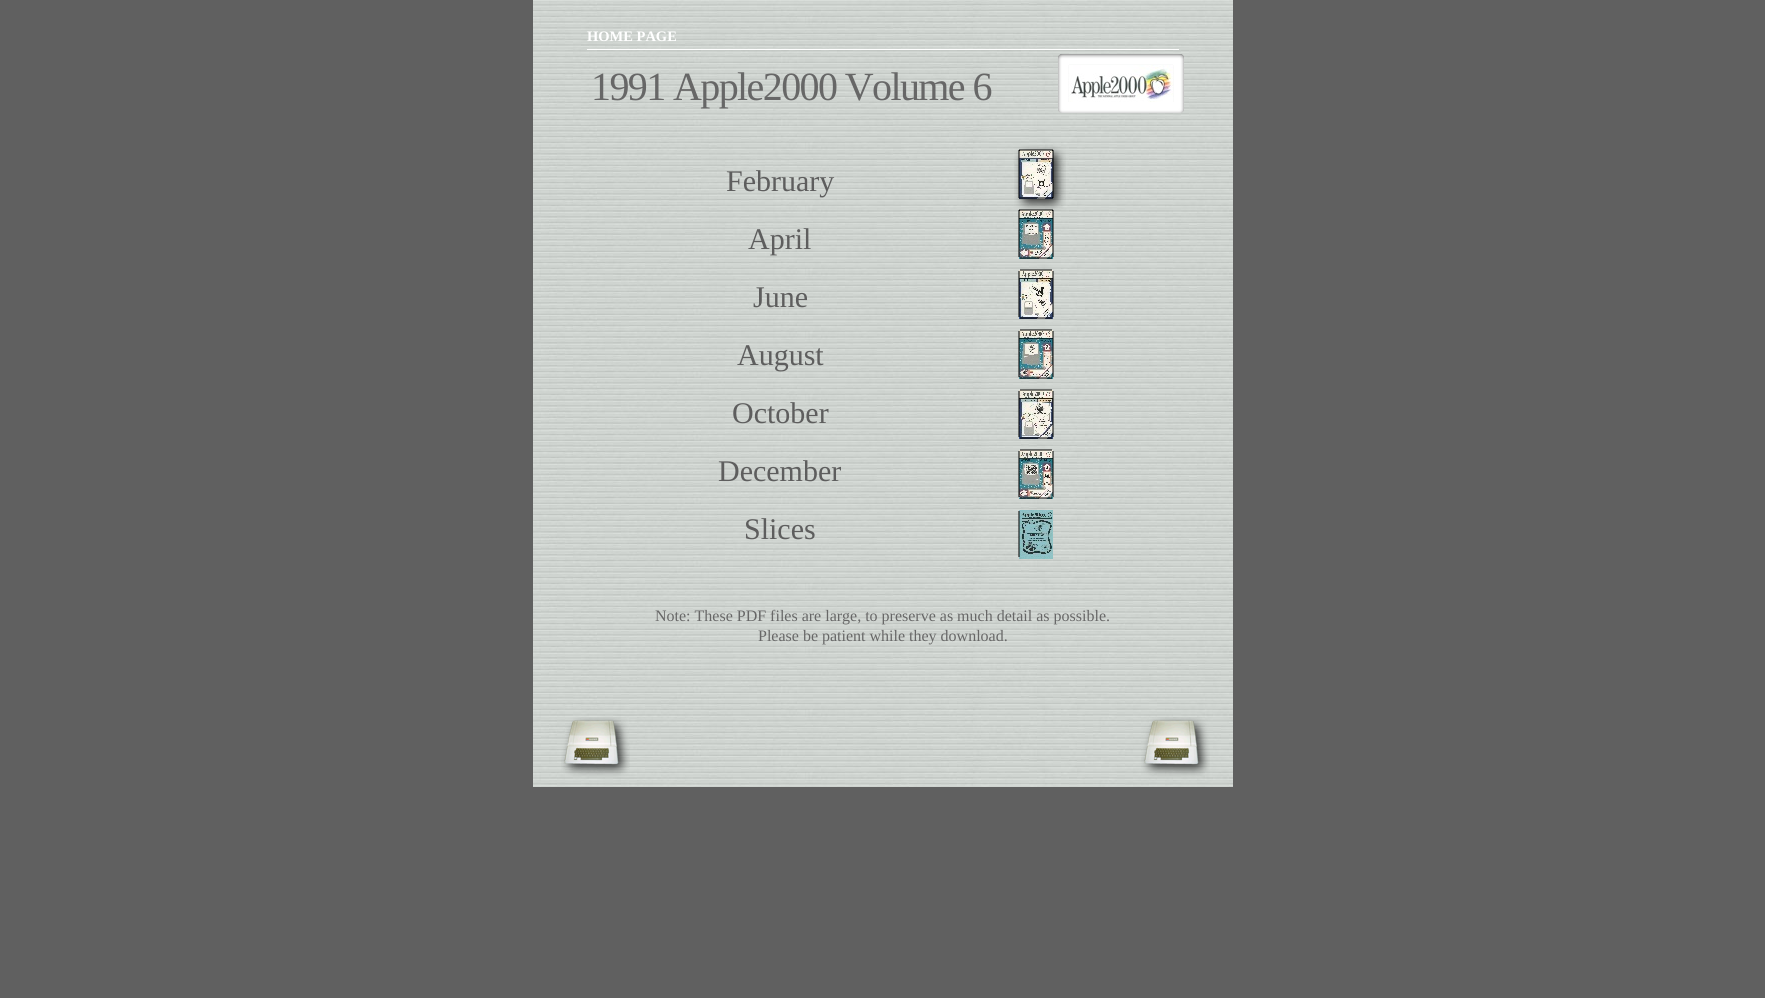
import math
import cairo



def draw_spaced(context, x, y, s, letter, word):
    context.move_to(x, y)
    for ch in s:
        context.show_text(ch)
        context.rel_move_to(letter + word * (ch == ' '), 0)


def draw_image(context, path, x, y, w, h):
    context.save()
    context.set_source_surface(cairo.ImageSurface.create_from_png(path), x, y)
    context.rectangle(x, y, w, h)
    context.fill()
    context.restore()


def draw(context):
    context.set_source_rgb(96 / 255, 96 / 255, 96 / 255)
    context.paint()
    draw_image(context, "images/1.png", 533, 0, 700, 787)
    context.set_source_rgb(1, 1, 1)
    context.rectangle(587, 49, 592, 1)
    context.fill()
    draw_image(context, "images/10.png", 1069, 65, 104, 38)
    draw_image(context, "images/2.png", 1058, 54, 12, 12)
    draw_image(context, "images/3.png", 1070, 54, 102, 11)
    draw_image(context, "images/4.png", 1172, 54, 12, 12)
    draw_image(context, "images/5.png", 1058, 66, 11, 35)
    draw_image(context, "images/6.png", 1173, 66, 11, 35)
    draw_image(context, "images/7.png", 1058, 101, 12, 12)
    draw_image(context, "images/8.png", 1070, 102, 102, 11)
    draw_image(context, "images/9.png", 1172, 101, 12, 12)
    draw_image(context, "images/11.png", 1014, 145, 52, 66)
    draw_image(context, "images/14.png", 1019, 210, 34, 49)
    draw_image(context, "images/12.png", 1018, 209, 2, 2)
    context.set_source_rgba(0, 0, 0, 0.5)
    context.rectangle(1020, 209, 32, 2)
    context.fill()
    draw_image(context, "images/13.png", 1052, 209, 2, 2)
    context.rectangle(1018, 211, 2, 46)
    context.fill()
    context.rectangle(1052, 211, 2, 46)
    context.fill()
    draw_image(context, "images/15.png", 1020, 257, 32, 2)
    draw_image(context, "images/16.png", 1019, 270, 34, 49)
    context.rectangle(1020, 269, 32, 2)
    context.fill()
    context.rectangle(1018, 271, 2, 46)
    context.fill()
    context.rectangle(1052, 271, 2, 46)
    context.fill()
    draw_image(context, "images/17.png", 1020, 317, 32, 2)
    draw_image(context, "images/18.png", 1019, 330, 34, 49)
    context.rectangle(1020, 329, 32, 2)
    context.fill()
    context.rectangle(1018, 331, 2, 46)
    context.fill()
    context.rectangle(1052, 331, 2, 46)
    context.fill()
    draw_image(context, "images/19.png", 1020, 377, 32, 2)
    draw_image(context, "images/20.png", 1019, 390, 34, 49)
    context.rectangle(1020, 389, 32, 2)
    context.fill()
    context.rectangle(1018, 391, 2, 46)
    context.fill()
    context.rectangle(1052, 391, 2, 46)
    context.fill()
    draw_image(context, "images/21.png", 1020, 437, 32, 2)
    draw_image(context, "images/22.png", 1019, 450, 34, 49)
    context.rectangle(1020, 449, 32, 2)
    context.fill()
    context.rectangle(1018, 451, 2, 46)
    context.fill()
    context.rectangle(1052, 451, 2, 46)
    context.fill()
    draw_image(context, "images/23.png", 1020, 497, 32, 2)
    draw_image(context, "images/24.png", 1019, 510, 34, 49)
    context.rectangle(1018, 511, 2, 46)
    context.fill()
    draw_image(context, "images/25.png", 561, 717, 69, 60)
    draw_image(context, "images/26.png", 1141, 717, 69, 60)
    context.select_font_face("Liberation Serif", cairo.FontSlant.NORMAL, cairo.FontWeight.BOLD)
    context.set_font_size(14.5)
    context.set_source_rgb(1, 1, 1)
    context.move_to(587, 41)
    context.show_text("HOME PAGE")
    context.select_font_face("Liberation Serif")
    context.set_font_size(40)
    context.set_source_rgb(103 / 255, 103 / 255, 103 / 255)
    draw_spaced(context, 591, 100, "1991 Apple2000 Volume 6", -1.6, 0)
    context.set_font_size(30)
    context.set_source_rgb(94 / 255, 94 / 255, 94 / 255)
    context.move_to(726, 191)
    context.show_text("February")
    context.move_to(748, 249)
    context.show_text("April")
    context.move_to(753, 307)
    context.show_text("June")
    context.move_to(737, 365)
    context.show_text("August")
    context.move_to(732, 423)
    context.show_text("October")
    context.move_to(718, 481)
    context.show_text("December")
    context.move_to(744, 539)
    context.show_text("Slices")
    context.set_font_size(16)
    context.set_source_rgb(103 / 255, 103 / 255, 103 / 255)
    context.move_to(655, 621)
    context.show_text("Note: These PDF files are large, to preserve as much detail as possible.")
    context.move_to(758, 641)
    context.show_text("Please be patient while they download.")


surface = cairo.ImageSurface(cairo.Format.RGB24, 1765, 998)
context = cairo.Context(surface)
options = cairo.FontOptions()
options.set_hint_metrics(cairo.HintMetrics.OFF)
options.set_hint_style(cairo.HintStyle.NONE)
context.set_font_options(options)
context.set_miter_limit(4)
draw(context)
surface.write_to_png("out.png")
